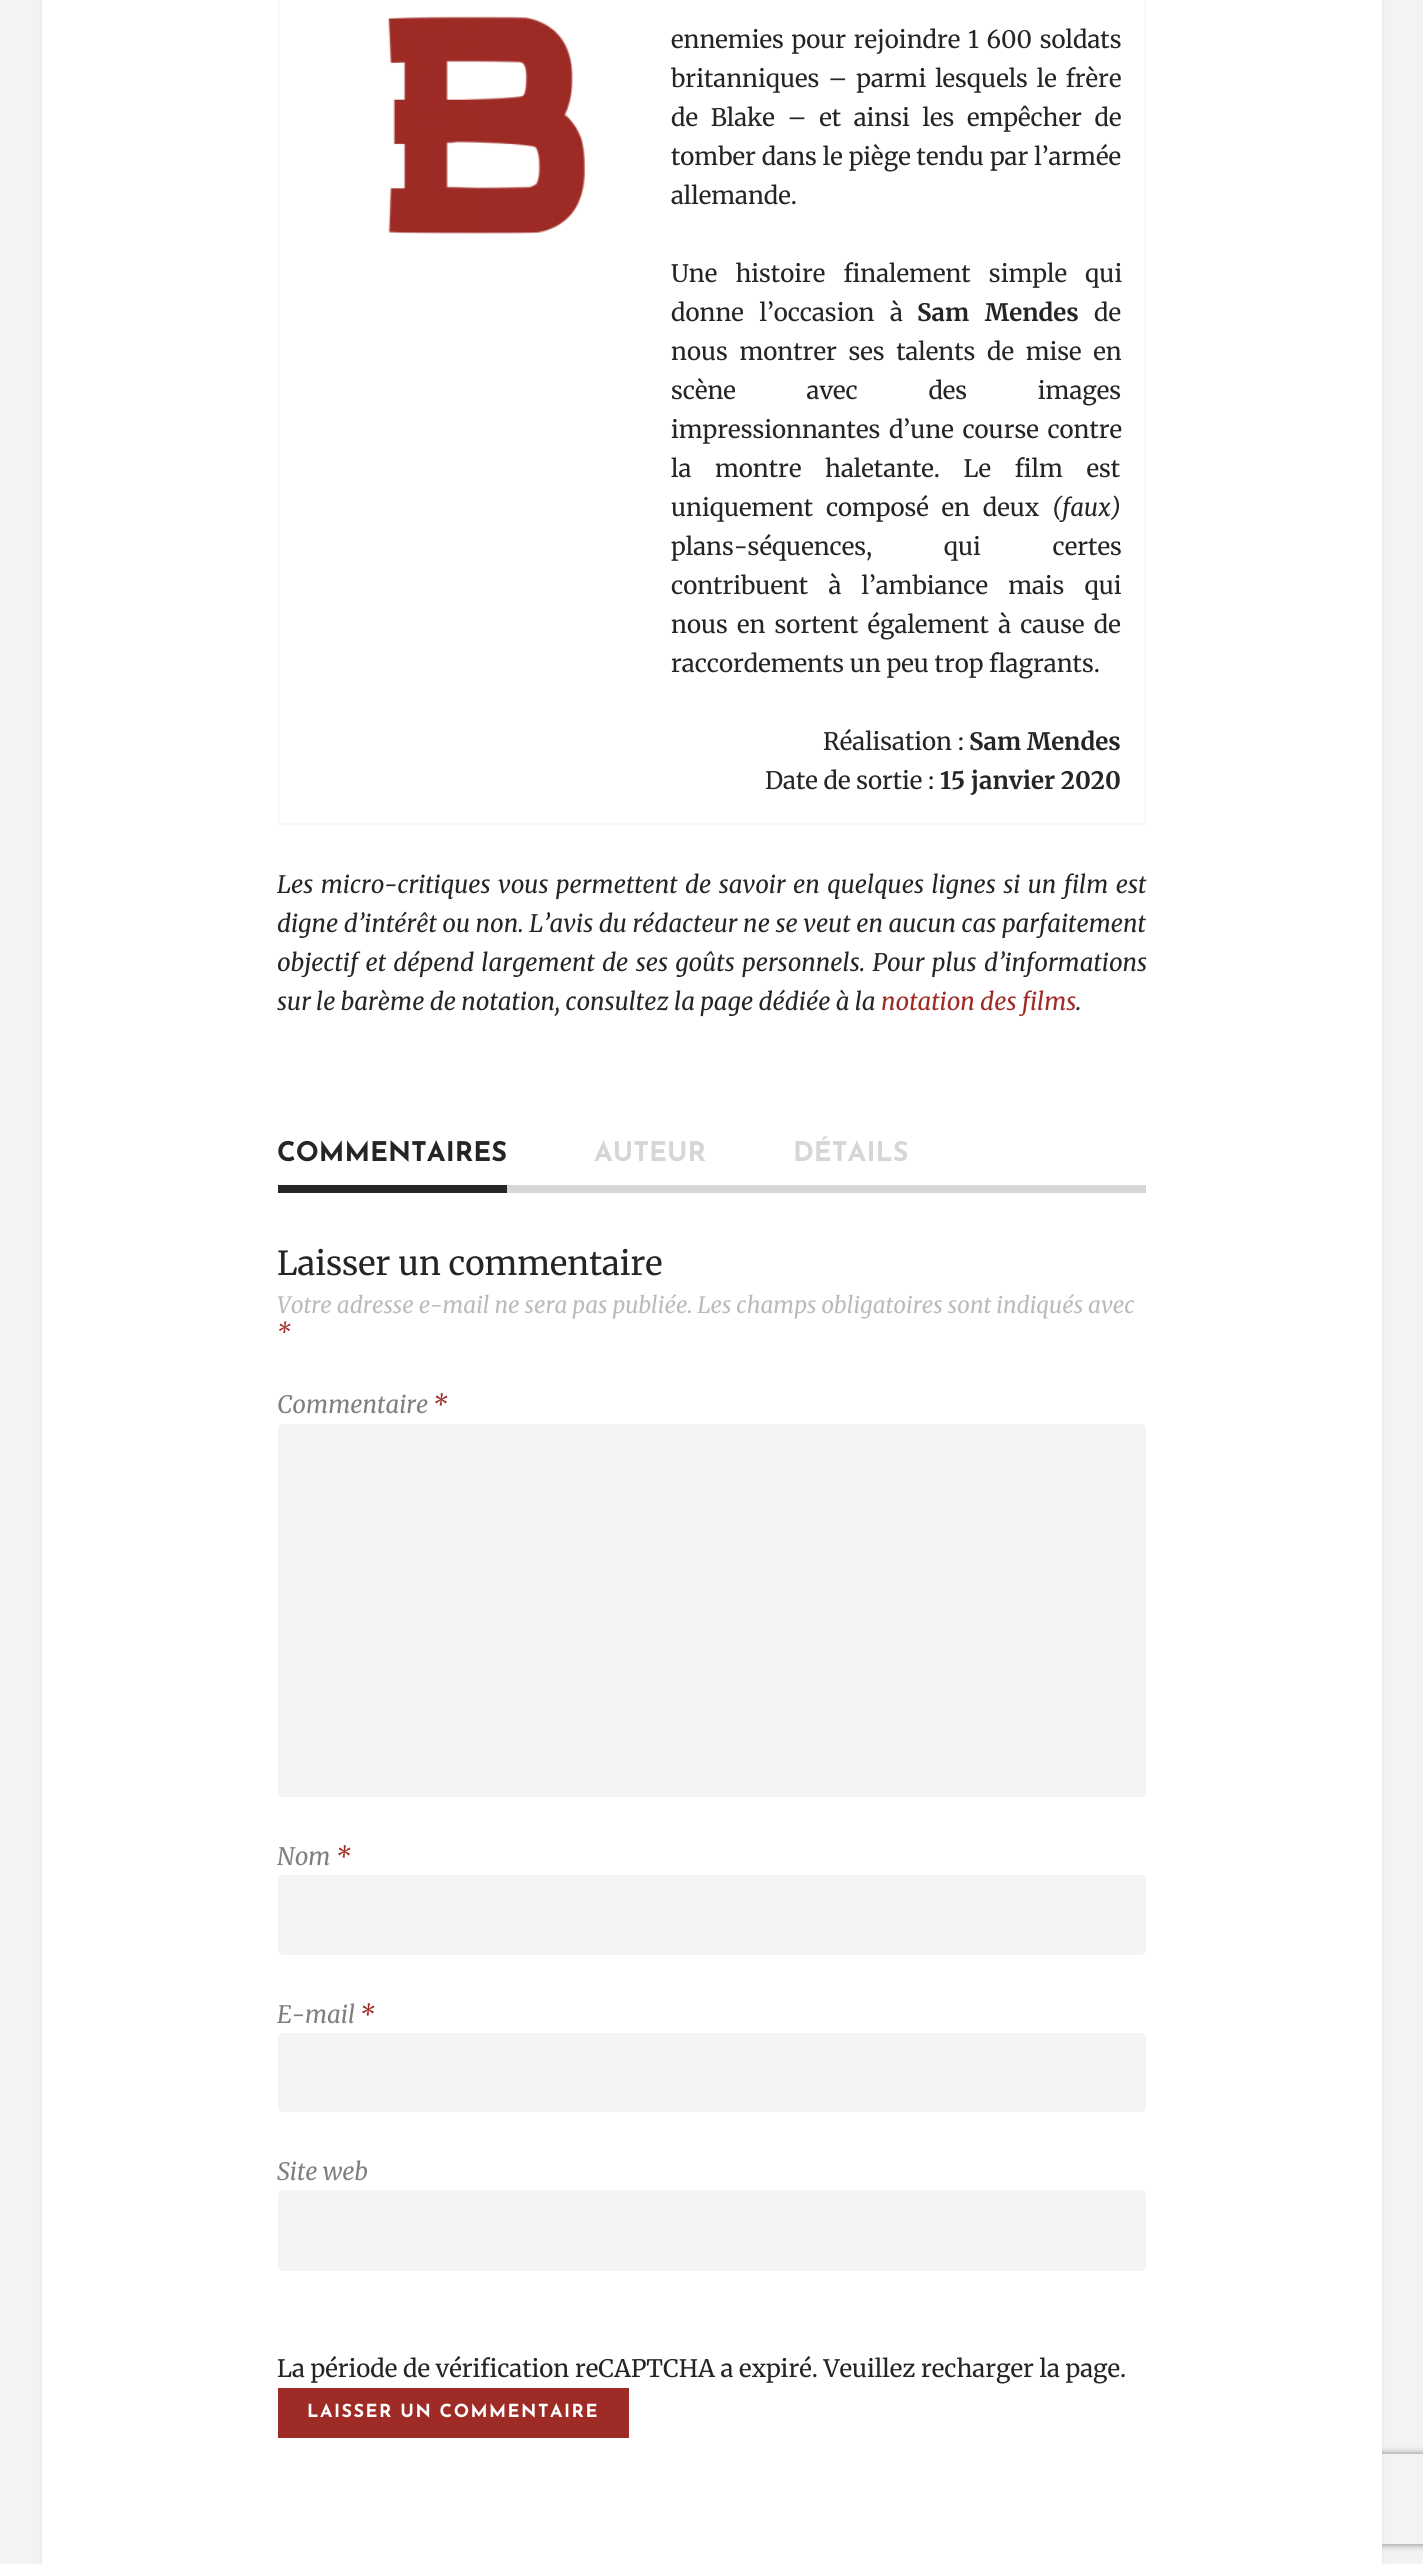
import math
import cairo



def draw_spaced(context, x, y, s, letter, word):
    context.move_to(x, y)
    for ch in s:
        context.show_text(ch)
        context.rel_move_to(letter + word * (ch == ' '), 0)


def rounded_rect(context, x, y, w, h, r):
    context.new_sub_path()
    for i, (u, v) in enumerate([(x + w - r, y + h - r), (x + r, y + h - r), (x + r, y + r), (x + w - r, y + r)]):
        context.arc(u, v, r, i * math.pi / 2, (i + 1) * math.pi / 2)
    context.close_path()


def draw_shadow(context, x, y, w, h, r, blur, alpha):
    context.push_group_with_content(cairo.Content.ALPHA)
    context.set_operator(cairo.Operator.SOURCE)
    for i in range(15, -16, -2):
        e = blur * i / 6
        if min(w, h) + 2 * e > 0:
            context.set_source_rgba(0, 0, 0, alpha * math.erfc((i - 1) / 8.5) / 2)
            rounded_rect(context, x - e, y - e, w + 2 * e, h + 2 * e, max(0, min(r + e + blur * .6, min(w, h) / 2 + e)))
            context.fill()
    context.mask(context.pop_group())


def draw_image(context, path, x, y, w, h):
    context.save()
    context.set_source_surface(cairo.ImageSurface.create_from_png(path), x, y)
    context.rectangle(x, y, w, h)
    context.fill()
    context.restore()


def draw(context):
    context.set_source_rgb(243 / 255, 243 / 255, 243 / 255)
    context.paint()
    context.set_source_rgb(0, 0, 0)
    draw_shadow(context, 42, -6, 1340, 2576, 0, 2, 0.08)
    context.save()
    context.set_fill_rule(cairo.FillRule.EVEN_ODD)
    context.new_path()
    context.move_to(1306, 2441)
    context.line_to(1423, 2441)
    context.line_to(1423, 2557)
    context.line_to(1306, 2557)
    context.close_path()
    context.move_to(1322, 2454)
    context.line_to(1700, 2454)
    context.curve_to(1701.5, 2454, 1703, 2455.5, 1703, 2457)
    context.line_to(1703, 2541)
    context.curve_to(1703, 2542.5, 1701.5, 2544, 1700, 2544)
    context.line_to(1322, 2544)
    context.curve_to(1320.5, 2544, 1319, 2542.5, 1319, 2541)
    context.line_to(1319, 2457)
    context.curve_to(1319, 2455.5, 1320.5, 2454, 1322, 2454)
    context.close_path()
    context.clip()
    context.set_source_rgb(128 / 255, 128 / 255, 128 / 255)
    draw_shadow(context, 1319, 2454, 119, 90, 3, 4, 1)
    context.restore()
    context.set_source_rgb(1, 1, 1)
    context.rectangle(42, 0, 1340, 2564)
    context.fill()
    context.rectangle(279, -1, 866, 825)
    context.set_source_rgb(247 / 255, 247 / 255, 247 / 255)
    context.stroke()
    draw_image(context, "images/1.png", 388, 16, 197, 218)
    context.set_source_rgb(214 / 255, 214 / 255, 214 / 255)
    context.rectangle(507, 1185, 639, 8)
    context.fill()
    context.set_source_rgb(37 / 255, 37 / 255, 37 / 255)
    context.rectangle(278, 1185, 229, 8)
    context.fill()
    context.set_source_rgb(244 / 255, 244 / 255, 244 / 255)
    rounded_rect(context, 278, 1424, 868, 373, 5)
    context.fill()
    rounded_rect(context, 278, 1875, 868, 80, 5)
    context.fill()
    rounded_rect(context, 278, 2033, 868, 79, 5)
    context.fill()
    rounded_rect(context, 278, 2190, 868, 81, 5)
    context.fill()
    context.set_source_rgb(158 / 255, 43 / 255, 37 / 255)
    context.rectangle(278, 2388, 351, 50)
    context.fill()
    context.select_font_face("Merriweather")
    context.set_font_size(24)
    context.set_source_rgb(37 / 255, 37 / 255, 37 / 255)
    draw_spaced(context, 671, 48, "ennemies pour rejoindre 1 600 soldats", 0, 2)
    draw_spaced(context, 671, 87, "britanniques – parmi lesquels le frère", 0, 3.25)
    draw_spaced(context, 671, 126, "de Blake – et ainsi les empêcher de", 0, 7)
    draw_spaced(context, 671, 165, "tomber dans le piège tendu par l’armée", 0, 0.25)
    context.move_to(671, 204)
    context.show_text("allemande.")
    draw_spaced(context, 671, 282, "Une histoire finalement simple qui", 0, 12.5)
    draw_spaced(context, 671, 321, "donne l’occasion à", 0, 10)
    context.select_font_face("Merriweather", cairo.FontSlant.NORMAL, cairo.FontWeight.BOLD)
    draw_spaced(context, 917, 321, "Sam Mendes", 0, 10)
    context.select_font_face("Merriweather")
    context.move_to(1094, 321)
    context.show_text("de")
    draw_spaced(context, 671, 360, "nous montrer ses talents de mise en", 0, 6)
    draw_spaced(context, 671, 399, "scène avec des images", 0, 65)
    draw_spaced(context, 671, 438, "impressionnantes d’une course contre", 0, 3)
    draw_spaced(context, 671, 477, "la montre haletante. Le film est", 0, 18)
    draw_spaced(context, 671, 516, "uniquement composé en deux", 0, 7)
    context.select_font_face("Merriweather", cairo.FontSlant.ITALIC)
    context.move_to(1052, 516)
    context.show_text("(faux)")
    context.select_font_face("Merriweather")
    draw_spaced(context, 671, 555, "plans-séquences, qui certes", 0, 66)
    draw_spaced(context, 671, 594, "contribuent à l’ambiance mais qui", 0, 14.5)
    draw_spaced(context, 671, 633, "nous en sortent également à cause de", 0, 3.5)
    context.move_to(671, 672)
    context.show_text("raccordements un peu trop flagrants.")
    context.move_to(823, 750)
    context.show_text("Réalisation :")
    context.select_font_face("Merriweather", cairo.FontSlant.NORMAL, cairo.FontWeight.BOLD)
    context.move_to(969, 750)
    context.show_text("Sam Mendes")
    context.select_font_face("Merriweather")
    context.move_to(765, 789)
    context.show_text("Date de sortie :")
    context.select_font_face("Merriweather", cairo.FontSlant.NORMAL, cairo.FontWeight.BOLD)
    context.move_to(940, 789)
    context.show_text("15 janvier 2020")
    context.select_font_face("Merriweather", cairo.FontSlant.ITALIC)
    draw_spaced(context, 277, 893, "Les micro-critiques vous permettent de savoir en quelques lignes si un film est", 0, 2.1)
    draw_spaced(context, 277, 932, "digne d’intérêt ou non. L’avis du rédacteur ne se veut en aucun cas parfaitement", 0, 0.25)
    draw_spaced(context, 277, 971, "objectif et dépend largement de ses goûts personnels. Pour plus d’informations", 0, 2)
    context.move_to(277, 1010)
    context.show_text("sur le barème de notation, consultez la page dédiée à la")
    context.set_source_rgb(158 / 255, 43 / 255, 37 / 255)
    context.move_to(881, 1010)
    context.show_text("notation des films")
    context.set_source_rgb(37 / 255, 37 / 255, 37 / 255)
    context.move_to(1076, 1010)
    context.show_text(".")
    context.select_font_face("Josefin Sans", cairo.FontSlant.NORMAL, cairo.FontWeight.BOLD)
    context.set_font_size(27)
    context.move_to(277, 1161)
    context.show_text("COMMENTAIRES")
    context.set_source_rgb(214 / 255, 214 / 255, 214 / 255)
    context.move_to(594, 1161)
    context.show_text("AUTEUR")
    context.move_to(793, 1161)
    context.show_text("DÉTAILS")
    context.select_font_face("Merriweather")
    context.set_font_size(33)
    context.set_source_rgb(37 / 255, 37 / 255, 37 / 255)
    context.move_to(277, 1275)
    context.show_text("Laisser un commentaire")
    context.select_font_face("Merriweather", cairo.FontSlant.ITALIC)
    context.set_font_size(22.5)
    context.set_source_rgb(187 / 255, 187 / 255, 187 / 255)
    context.move_to(277, 1313)
    context.show_text("Votre adresse e-mail ne sera pas publiée. Les champs obligatoires sont indiqués avec")
    context.set_source_rgb(158 / 255, 43 / 255, 37 / 255)
    context.move_to(277, 1340)
    context.show_text("*")
    context.set_font_size(24)
    context.set_source_rgb(127 / 255, 127 / 255, 127 / 255)
    context.move_to(277, 1413)
    context.show_text("Commentaire")
    context.set_source_rgb(158 / 255, 43 / 255, 37 / 255)
    context.move_to(433, 1413)
    context.show_text("*")
    context.set_source_rgb(127 / 255, 127 / 255, 127 / 255)
    context.move_to(277, 1865)
    context.show_text("Nom")
    context.set_source_rgb(158 / 255, 43 / 255, 37 / 255)
    context.move_to(336, 1865)
    context.show_text("*")
    context.set_source_rgb(127 / 255, 127 / 255, 127 / 255)
    context.move_to(277, 2023)
    context.show_text("E-mail")
    context.set_source_rgb(158 / 255, 43 / 255, 37 / 255)
    context.move_to(360, 2023)
    context.show_text("*")
    context.set_source_rgb(127 / 255, 127 / 255, 127 / 255)
    context.move_to(277, 2180)
    context.show_text("Site web")
    context.select_font_face("Merriweather")
    context.set_source_rgb(37 / 255, 37 / 255, 37 / 255)
    context.move_to(277, 2377)
    context.show_text("La période de vérification reCAPTCHA a expiré. Veuillez recharger la page.")
    context.select_font_face("Josefin Sans", cairo.FontSlant.NORMAL, cairo.FontWeight.BOLD)
    context.set_font_size(18)
    context.set_source_rgb(1, 1, 1)
    draw_spaced(context, 307, 2417, "LAISSER UN COMMENTAIRE", 1.5, 0)


surface = cairo.ImageSurface(cairo.Format.RGB24, 1423, 2564)
context = cairo.Context(surface)
options = cairo.FontOptions()
options.set_hint_metrics(cairo.HintMetrics.OFF)
options.set_hint_style(cairo.HintStyle.NONE)
context.set_font_options(options)
context.set_miter_limit(4)
draw(context)
surface.write_to_png("out.png")
